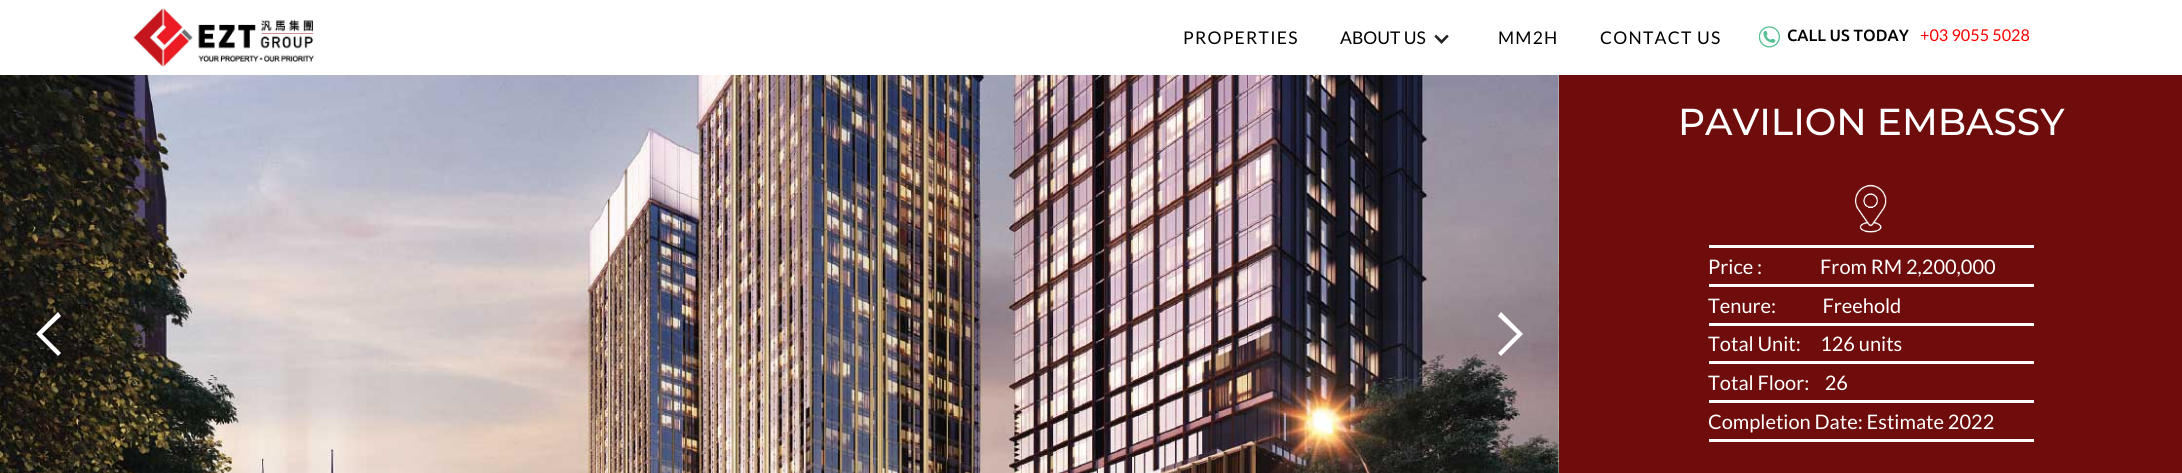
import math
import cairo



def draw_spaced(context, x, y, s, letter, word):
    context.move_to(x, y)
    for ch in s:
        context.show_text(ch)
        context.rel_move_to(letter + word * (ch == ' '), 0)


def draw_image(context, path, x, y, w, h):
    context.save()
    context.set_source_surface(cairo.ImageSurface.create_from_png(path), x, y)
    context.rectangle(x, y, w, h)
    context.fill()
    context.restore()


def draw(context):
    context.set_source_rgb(1, 1, 1)
    context.paint()
    draw_image(context, "images/1.png", 133, 8, 181, 59)
    draw_image(context, "images/2.png", 1434, 34, 15, 10)
    draw_image(context, "images/3.png", 1759, 26, 21, 22)
    context.set_source_rgb(221 / 255, 221 / 255, 221 / 255)
    context.rectangle(1558, 75, 1, 398)
    context.fill()
    draw_image(context, "images/4.png", 0, 75, 1559, 398)
    draw_image(context, "images/5.png", 1558, 75, 1, 398)
    context.set_source_rgb(1, 1, 1)
    context.new_path()
    context.move_to(36, 334)
    context.line_to(58, 312)
    context.line_to(61, 316)
    context.line_to(42, 334)
    context.line_to(61, 353)
    context.line_to(58, 356)
    context.close_path()
    context.fill()
    context.new_path()
    context.move_to(1523, 334)
    context.line_to(1501, 312)
    context.line_to(1498, 316)
    context.line_to(1517, 334)
    context.line_to(1498, 353)
    context.line_to(1501, 356)
    context.close_path()
    context.fill()
    context.set_source_rgb(111 / 255, 12 / 255, 12 / 255)
    context.rectangle(1559, 75, 623, 398)
    context.fill()
    draw_image(context, "images/6.png", 1855, 184, 32, 49)
    context.set_source_rgb(1, 1, 1)
    context.rectangle(1709, 245, 325, 3)
    context.fill()
    context.rectangle(1709, 284, 325, 3)
    context.fill()
    context.rectangle(1709, 323, 325, 3)
    context.fill()
    context.rectangle(1709, 361, 325, 3)
    context.fill()
    context.rectangle(1709, 400, 325, 3)
    context.fill()
    context.rectangle(1709, 439, 325, 3)
    context.fill()
    context.select_font_face("Lato")
    context.set_font_size(17.5)
    context.set_source_rgb(0, 0, 0)
    draw_spaced(context, 1183, 44, "PROPERTIES", 1.25, 0)
    context.move_to(1340, 44)
    context.show_text("ABOUT US")
    draw_spaced(context, 1498, 44, "MM2H", 1.25, 0)
    draw_spaced(context, 1600, 44, "CONTACT US", 1.25, 0)
    context.select_font_face("Ubuntu Medium")
    context.set_font_size(16.25)
    context.move_to(1787, 41)
    context.show_text("CALL US TODAY")
    context.select_font_face("Lato")
    context.set_source_rgb(1, 0, 0)
    context.move_to(1920, 41)
    context.show_text("+03 9055 5028")
    context.select_font_face("Montserrat Medium")
    context.set_font_size(37.5)
    context.set_source_rgb(1, 1, 1)
    context.move_to(1678, 135)
    context.show_text("PAVILION EMBASSY")
    context.select_font_face("Lato")
    context.set_font_size(20)
    context.move_to(1708, 274)
    context.show_text("Price :               From RM 2,200,000")
    context.move_to(1708, 313)
    context.show_text("Tenure:            Freehold")
    context.move_to(1708, 351)
    context.show_text("Total Unit:     126 units")
    context.move_to(1708, 390)
    context.show_text("Total Floor:    26")
    context.move_to(1708, 429)
    context.show_text("Completion Date: Estimate 2022")


surface = cairo.ImageSurface(cairo.Format.RGB24, 2182, 473)
context = cairo.Context(surface)
options = cairo.FontOptions()
options.set_hint_metrics(cairo.HintMetrics.OFF)
options.set_hint_style(cairo.HintStyle.NONE)
context.set_font_options(options)
context.set_miter_limit(4)
draw(context)
surface.write_to_png("out.png")
